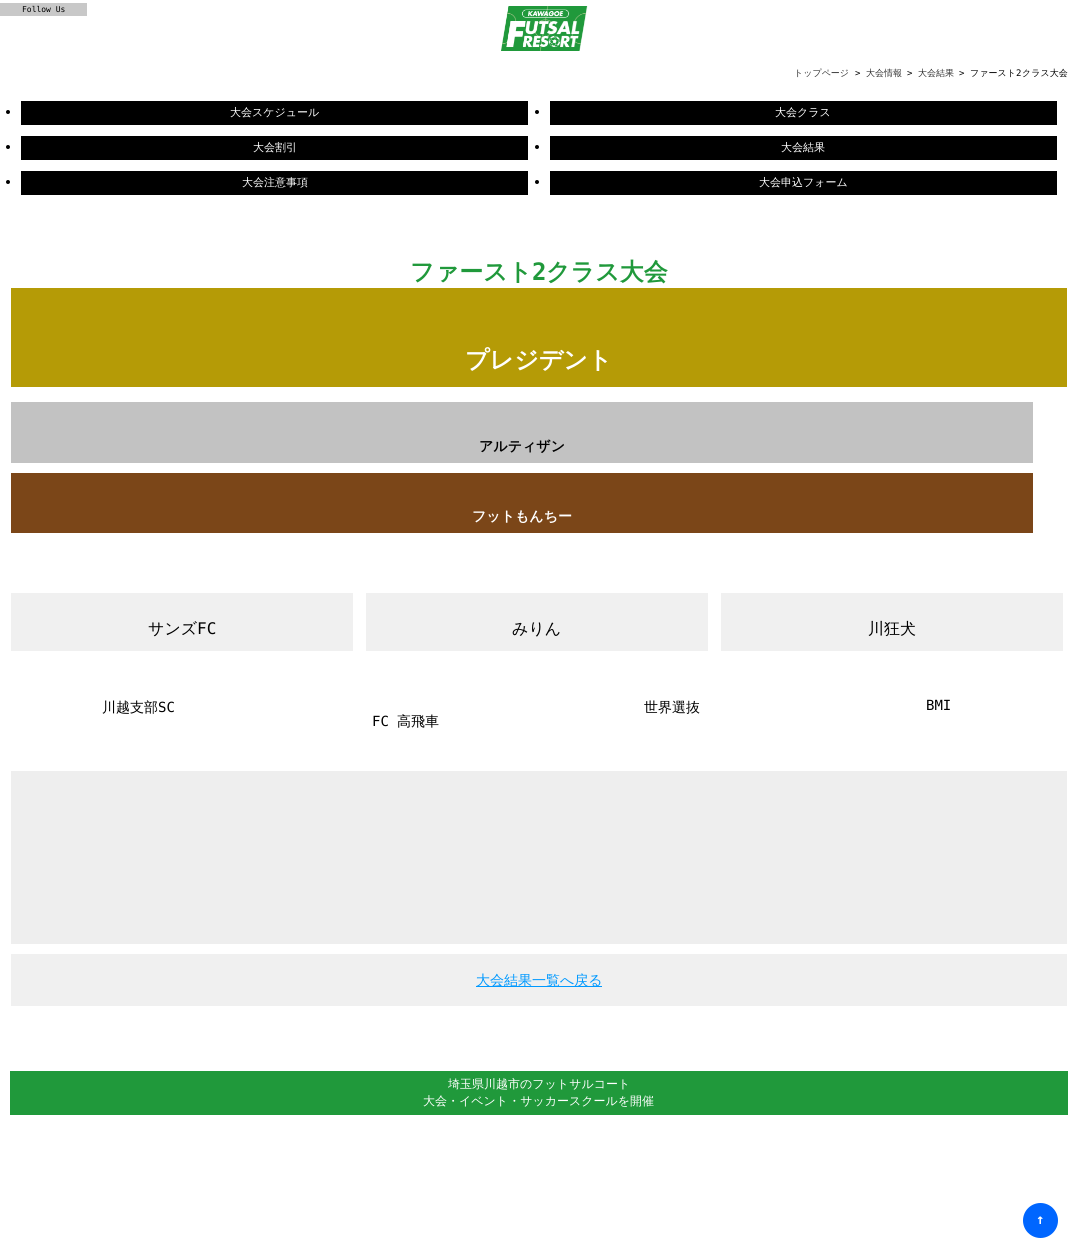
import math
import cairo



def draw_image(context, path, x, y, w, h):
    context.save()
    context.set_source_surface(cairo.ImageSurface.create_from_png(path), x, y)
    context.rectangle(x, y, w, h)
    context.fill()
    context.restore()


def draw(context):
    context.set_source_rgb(1, 1, 1)
    context.paint()
    context.set_source_rgb(200 / 255, 200 / 255, 200 / 255)
    context.rectangle(0, 3, 87, 13)
    context.fill()
    draw_image(context, "images/1.png", 501, 6, 87, 45)
    context.set_source_rgb(0, 0, 0)
    context.arc(8, 112, 2, 0, 2 * math.pi)
    context.fill()
    context.rectangle(21, 101, 507, 24)
    context.fill()
    context.arc(537, 112, 2, 0, 2 * math.pi)
    context.fill()
    context.rectangle(550, 101, 507, 24)
    context.fill()
    context.arc(8, 147, 2, 0, 2 * math.pi)
    context.fill()
    context.rectangle(21, 136, 507, 24)
    context.fill()
    context.arc(537, 147, 2, 0, 2 * math.pi)
    context.fill()
    context.rectangle(550, 136, 507, 24)
    context.fill()
    context.arc(8, 182, 2, 0, 2 * math.pi)
    context.fill()
    context.rectangle(21, 171, 507, 24)
    context.fill()
    context.arc(537, 182, 2, 0, 2 * math.pi)
    context.fill()
    context.rectangle(550, 171, 507, 24)
    context.fill()
    context.set_source_rgb(181 / 255, 155 / 255, 6 / 255)
    context.rectangle(11, 288, 1056, 99)
    context.fill()
    context.set_source_rgb(194 / 255, 194 / 255, 194 / 255)
    context.rectangle(11, 402, 1022, 61)
    context.fill()
    context.set_source_rgb(123 / 255, 70 / 255, 24 / 255)
    context.rectangle(11, 473, 1022, 60)
    context.fill()
    context.set_source_rgb(240 / 255, 240 / 255, 240 / 255)
    context.rectangle(11, 593, 342, 58)
    context.fill()
    context.rectangle(366, 593, 342, 58)
    context.fill()
    context.rectangle(721, 593, 342, 58)
    context.fill()
    context.set_source_rgb(238 / 255, 238 / 255, 238 / 255)
    context.rectangle(11, 771, 1056, 173)
    context.fill()
    context.set_source_rgb(240 / 255, 240 / 255, 240 / 255)
    context.rectangle(11, 954, 1056, 52)
    context.fill()
    context.set_source_rgb(0, 153 / 255, 1)
    context.rectangle(476, 986, 126, 1)
    context.fill()
    context.set_source_rgb(32 / 255, 153 / 255, 59 / 255)
    context.rectangle(10, 1071, 1058, 44)
    context.fill()
    context.set_source_rgb(0, 102 / 255, 1)
    context.arc(1040.5, 1220.5, 17.5, 0, 2 * math.pi)
    context.fill()
    context.select_font_face("DejaVu Sans Mono")
    context.set_font_size(8)
    context.set_source_rgb(0, 0, 0)
    context.move_to(22, 12)
    context.show_text("Follow Us")
    context.select_font_face("WenQuanYi Zen Hei Medium")
    context.set_font_size(9)
    context.set_source_rgb(51 / 255, 51 / 255, 51 / 255)
    context.move_to(794, 76)
    context.show_text("トップページ")
    context.select_font_face("DejaVu Sans Mono")
    context.set_source_rgb(0, 0, 0)
    context.move_to(855, 76)
    context.show_text(">")
    context.select_font_face("WenQuanYi Zen Hei Medium")
    context.set_source_rgb(51 / 255, 51 / 255, 51 / 255)
    context.move_to(866, 76)
    context.show_text("大会情報")
    context.select_font_face("DejaVu Sans Mono")
    context.set_source_rgb(0, 0, 0)
    context.move_to(907, 76)
    context.show_text(">")
    context.select_font_face("WenQuanYi Zen Hei Medium")
    context.set_source_rgb(51 / 255, 51 / 255, 51 / 255)
    context.move_to(918, 76)
    context.show_text("大会結果")
    context.select_font_face("DejaVu Sans Mono")
    context.set_source_rgb(0, 0, 0)
    context.move_to(959, 76)
    context.show_text(">")
    context.select_font_face("WenQuanYi Zen Hei Medium")
    context.move_to(970, 76)
    context.show_text("ファースト")
    context.select_font_face("DejaVu Sans Mono")
    context.move_to(1016, 76)
    context.show_text("2")
    context.select_font_face("WenQuanYi Zen Hei Medium")
    context.move_to(1022, 76)
    context.show_text("クラス大会")
    context.set_font_size(11)
    context.set_source_rgb(1, 1, 1)
    context.move_to(230, 116)
    context.show_text("大会スケジュール")
    context.move_to(775, 116)
    context.show_text("大会クラス")
    context.move_to(253, 151)
    context.show_text("大会割引")
    context.move_to(781, 151)
    context.show_text("大会結果")
    context.move_to(242, 186)
    context.show_text("大会注意事項")
    context.move_to(759, 186)
    context.show_text("大会申込フォーム")
    context.select_font_face("WenQuanYi Zen Hei", cairo.FontSlant.NORMAL, cairo.FontWeight.BOLD)
    context.set_font_size(24)
    context.set_source_rgb(32 / 255, 153 / 255, 59 / 255)
    context.move_to(410, 280)
    context.show_text("ファースト")
    context.select_font_face("DejaVu Sans Mono", cairo.FontSlant.NORMAL, cairo.FontWeight.BOLD)
    context.move_to(532, 280)
    context.show_text("2")
    context.select_font_face("WenQuanYi Zen Hei", cairo.FontSlant.NORMAL, cairo.FontWeight.BOLD)
    context.move_to(546, 280)
    context.show_text("クラス大会")
    context.set_source_rgb(1, 1, 1)
    context.move_to(465, 368)
    context.show_text("プレジデント")
    context.set_font_size(14)
    context.set_source_rgb(0, 0, 0)
    context.move_to(479, 451)
    context.show_text("アルティザン")
    context.set_source_rgb(1, 1, 1)
    context.move_to(472, 521)
    context.show_text("フットもんちー")
    context.select_font_face("WenQuanYi Zen Hei Medium")
    context.set_font_size(16)
    context.set_source_rgb(0, 0, 0)
    context.move_to(148, 634)
    context.show_text("サンズ")
    context.select_font_face("DejaVu Sans Mono")
    context.move_to(197, 634)
    context.show_text("FC")
    context.select_font_face("WenQuanYi Zen Hei Medium")
    context.move_to(512, 634)
    context.show_text("みりん")
    context.move_to(868, 634)
    context.show_text("川狂犬")
    context.set_font_size(14)
    context.move_to(102, 712)
    context.show_text("川越支部")
    context.select_font_face("DejaVu Sans Mono")
    context.move_to(158, 712)
    context.show_text("SC")
    context.select_font_face("WenQuanYi Zen Hei Medium")
    context.move_to(644, 712)
    context.show_text("世界選抜")
    context.select_font_face("DejaVu Sans Mono")
    context.move_to(926, 710)
    context.show_text("BMI")
    context.move_to(372, 726)
    context.show_text("FC")
    context.select_font_face("WenQuanYi Zen Hei Medium")
    context.move_to(397, 726)
    context.show_text("高飛車")
    context.set_source_rgb(0, 153 / 255, 1)
    context.move_to(476, 985)
    context.show_text("大会結果一覧へ戻る")
    context.set_font_size(12)
    context.set_source_rgb(1, 1, 1)
    context.move_to(448, 1088)
    context.show_text("埼玉県川越市のフットサルコート")
    context.move_to(423, 1105)
    context.show_text("大会・イベント・サッカースクールを開催")
    context.select_font_face("DejaVu Sans Mono", cairo.FontSlant.NORMAL, cairo.FontWeight.BOLD)
    context.set_font_size(14)
    context.move_to(1036, 1224)
    context.show_text("↑")


surface = cairo.ImageSurface(cairo.Format.RGB24, 1078, 1258)
context = cairo.Context(surface)
options = cairo.FontOptions()
options.set_hint_metrics(cairo.HintMetrics.OFF)
options.set_hint_style(cairo.HintStyle.NONE)
context.set_font_options(options)
context.set_miter_limit(4)
draw(context)
surface.write_to_png("out.png")
